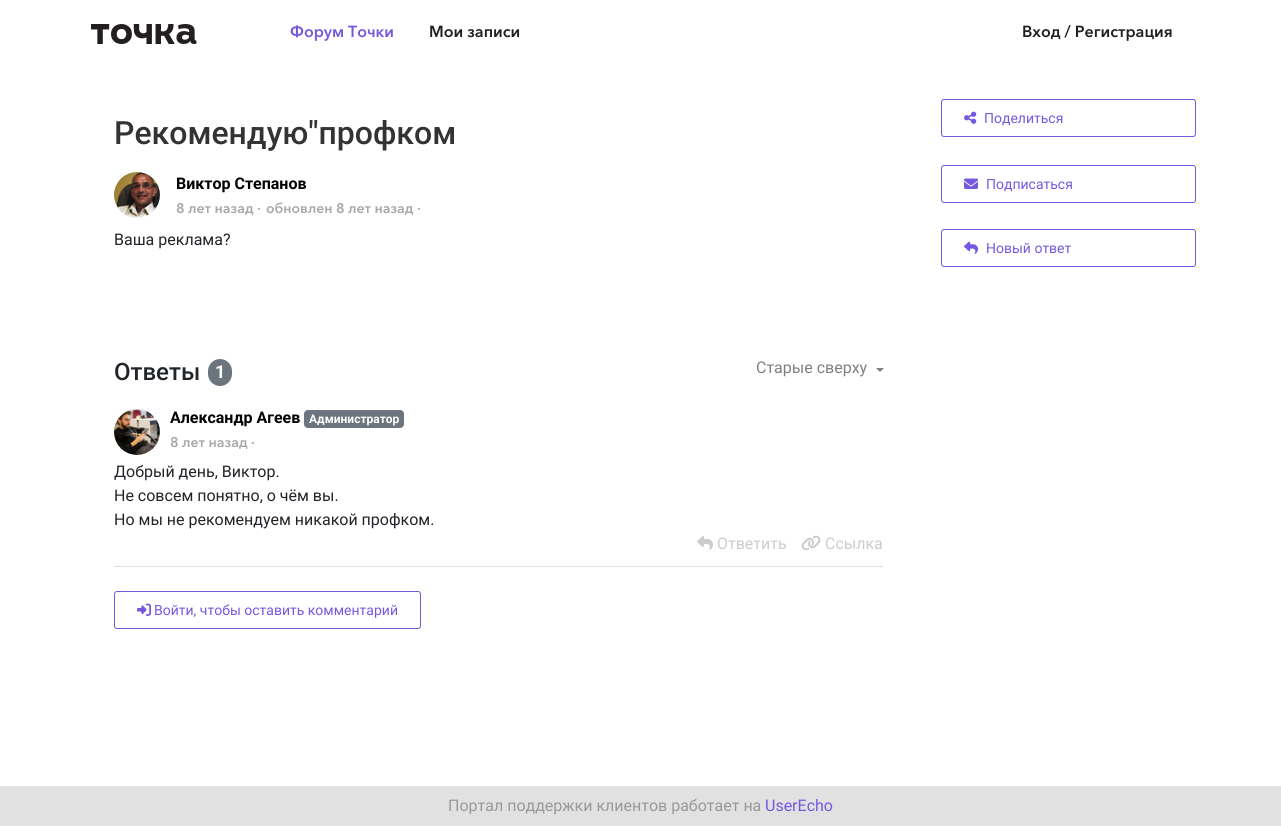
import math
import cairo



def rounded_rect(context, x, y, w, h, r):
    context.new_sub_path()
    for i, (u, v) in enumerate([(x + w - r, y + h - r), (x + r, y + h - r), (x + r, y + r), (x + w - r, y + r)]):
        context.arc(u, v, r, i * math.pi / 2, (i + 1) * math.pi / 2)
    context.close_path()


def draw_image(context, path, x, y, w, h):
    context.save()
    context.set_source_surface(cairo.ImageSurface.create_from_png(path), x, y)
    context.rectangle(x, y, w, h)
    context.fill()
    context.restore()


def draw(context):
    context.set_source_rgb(1, 1, 1)
    context.paint()
    draw_image(context, "images/1.png", 91, 24, 106, 20)
    draw_image(context, "images/2.png", 114, 172, 46, 46)
    rounded_rect(context, 941.5, 99.5, 254, 37, 2.5)
    context.set_source_rgb(118 / 255, 88 / 255, 224 / 255)
    context.set_line_width(1)
    context.stroke()
    draw_image(context, "images/3.png", 964, 111, 13, 13)
    rounded_rect(context, 941.5, 165.5, 254, 37, 2.5)
    context.stroke()
    draw_image(context, "images/4.png", 964, 178, 14, 11)
    rounded_rect(context, 941.5, 229.5, 254, 37, 2.5)
    context.stroke()
    draw_image(context, "images/5.png", 964, 241, 14, 13)
    context.set_source_rgb(108 / 255, 117 / 255, 125 / 255)
    rounded_rect(context, 208, 359, 24, 27, 12)
    context.fill()
    context.set_source_rgb(128 / 255, 128 / 255, 128 / 255)
    context.new_path()
    context.move_to(876, 368)
    context.line_to(884, 368)
    context.line_to(880, 372)
    context.close_path()
    context.fill()
    context.set_source_rgb(221 / 255, 221 / 255, 221 / 255)
    context.rectangle(114, 566, 769, 1)
    context.fill()
    draw_image(context, "images/6.png", 114, 409, 46, 46)
    context.set_source_rgb(108 / 255, 117 / 255, 125 / 255)
    rounded_rect(context, 304, 410, 100, 18, 4)
    context.fill()
    draw_image(context, "images/7.png", 697, 536, 16, 14)
    draw_image(context, "images/8.png", 801, 535, 20, 16)
    rounded_rect(context, 114.5, 591.5, 306, 37, 2.5)
    context.set_source_rgb(118 / 255, 88 / 255, 224 / 255)
    context.stroke()
    draw_image(context, "images/9.png", 137, 603, 14, 13)
    context.set_source_rgb(225 / 255, 225 / 255, 225 / 255)
    context.rectangle(0, 786, 1281, 40)
    context.fill()
    context.select_font_face("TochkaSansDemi", cairo.FontSlant.NORMAL, cairo.FontWeight.BOLD)
    context.set_font_size(16)
    context.set_source_rgb(118 / 255, 88 / 255, 224 / 255)
    context.move_to(290, 37)
    context.show_text("Форум Точки")
    context.set_source_rgb(35 / 255, 31 / 255, 32 / 255)
    context.move_to(429, 37)
    context.show_text("Мои записи")
    context.move_to(1022, 37)
    context.show_text("Вход / Регистрация")
    context.select_font_face("Roboto Medium")
    context.set_font_size(32)
    context.set_source_rgb(51 / 255, 51 / 255, 51 / 255)
    context.move_to(114, 144)
    context.show_text("Рекомендую\"профком")
    context.select_font_face("Roboto", cairo.FontSlant.NORMAL, cairo.FontWeight.BOLD)
    context.set_font_size(16)
    context.set_source_rgb(0, 0, 0)
    context.move_to(176, 189)
    context.show_text("Виктор Степанов")
    context.select_font_face("TochkaSansDemi", cairo.FontSlant.NORMAL, cairo.FontWeight.BOLD)
    context.set_font_size(14)
    context.set_source_rgb(168 / 255, 168 / 255, 168 / 255)
    context.move_to(176, 213)
    context.show_text("8 лет назад")
    context.move_to(257, 213)
    context.show_text("·")
    context.move_to(266, 213)
    context.show_text("обновлен 8 лет назад")
    context.move_to(417, 213)
    context.show_text("·")
    context.select_font_face("Roboto")
    context.set_font_size(16)
    context.set_source_rgb(33 / 255, 37 / 255, 41 / 255)
    context.move_to(114, 245)
    context.show_text("Ваша реклама?")
    context.set_font_size(14)
    context.set_source_rgb(118 / 255, 88 / 255, 224 / 255)
    context.move_to(984, 123)
    context.show_text("Поделиться")
    context.move_to(986, 189)
    context.show_text("Подписаться")
    context.move_to(986, 253)
    context.show_text("Новый ответ")
    context.select_font_face("Roboto Medium")
    context.set_font_size(24)
    context.set_source_rgb(33 / 255, 37 / 255, 41 / 255)
    context.move_to(114, 380)
    context.show_text("Ответы")
    context.select_font_face("Roboto", cairo.FontSlant.NORMAL, cairo.FontWeight.BOLD)
    context.set_font_size(18)
    context.set_source_rgb(1, 1, 1)
    context.move_to(215, 378)
    context.show_text("1")
    context.select_font_face("Roboto")
    context.set_font_size(16)
    context.set_source_rgb(128 / 255, 128 / 255, 128 / 255)
    context.move_to(756, 373)
    context.show_text("Старые сверху")
    context.select_font_face("Roboto", cairo.FontSlant.NORMAL, cairo.FontWeight.BOLD)
    context.set_source_rgb(0, 0, 0)
    context.move_to(170, 423)
    context.show_text("Александр Агеев")
    context.set_font_size(12)
    context.set_source_rgb(1, 1, 1)
    context.move_to(309, 423)
    context.show_text("Администратор")
    context.select_font_face("TochkaSansDemi", cairo.FontSlant.NORMAL, cairo.FontWeight.BOLD)
    context.set_font_size(14)
    context.set_source_rgb(168 / 255, 168 / 255, 168 / 255)
    context.move_to(170, 447)
    context.show_text("8 лет назад")
    context.move_to(251, 447)
    context.show_text("·")
    context.save()
    context.rectangle(114, 460, 769, 72)
    context.clip()
    context.select_font_face("Roboto")
    context.set_font_size(16)
    context.set_source_rgb(33 / 255, 37 / 255, 41 / 255)
    context.move_to(114, 477)
    context.show_text("Добрый день, Виктор.")
    context.restore()
    context.select_font_face("Roboto")
    context.set_font_size(16)
    context.set_source_rgb(33 / 255, 37 / 255, 41 / 255)
    context.move_to(114, 501)
    context.show_text("Не совсем понятно, о чём вы.")
    context.move_to(114, 525)
    context.show_text("Но мы не рекомендуем никакой профком.")
    context.set_source_rgb(204 / 255, 204 / 255, 204 / 255)
    context.move_to(717, 549)
    context.show_text("Ответить")
    context.move_to(825, 549)
    context.show_text("Ссылка")
    context.set_font_size(14)
    context.set_source_rgb(118 / 255, 88 / 255, 224 / 255)
    context.move_to(154, 615)
    context.show_text("Войти, чтобы оставить комментарий")
    context.set_font_size(16)
    context.set_source_rgb(153 / 255, 153 / 255, 153 / 255)
    context.move_to(448, 811)
    context.show_text("Портал поддержки клиентов работает на")
    context.set_source_rgb(118 / 255, 88 / 255, 224 / 255)
    context.move_to(765, 811)
    context.show_text("UserEcho")


surface = cairo.ImageSurface(cairo.Format.RGB24, 1281, 826)
context = cairo.Context(surface)
options = cairo.FontOptions()
options.set_hint_metrics(cairo.HintMetrics.OFF)
options.set_hint_style(cairo.HintStyle.NONE)
context.set_font_options(options)
context.set_miter_limit(4)
draw(context)
surface.write_to_png("out.png")
